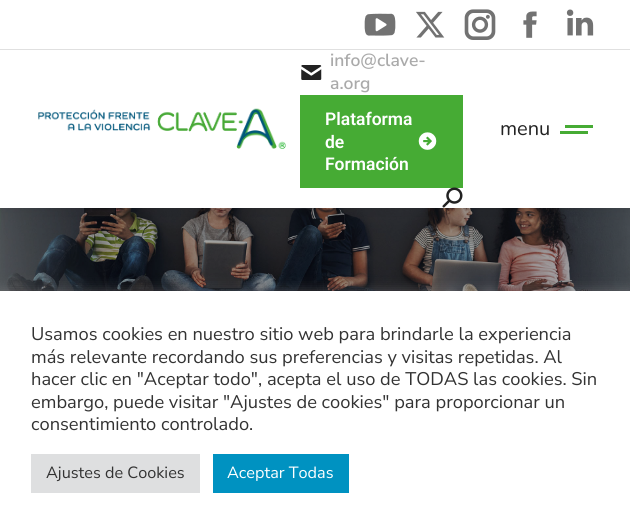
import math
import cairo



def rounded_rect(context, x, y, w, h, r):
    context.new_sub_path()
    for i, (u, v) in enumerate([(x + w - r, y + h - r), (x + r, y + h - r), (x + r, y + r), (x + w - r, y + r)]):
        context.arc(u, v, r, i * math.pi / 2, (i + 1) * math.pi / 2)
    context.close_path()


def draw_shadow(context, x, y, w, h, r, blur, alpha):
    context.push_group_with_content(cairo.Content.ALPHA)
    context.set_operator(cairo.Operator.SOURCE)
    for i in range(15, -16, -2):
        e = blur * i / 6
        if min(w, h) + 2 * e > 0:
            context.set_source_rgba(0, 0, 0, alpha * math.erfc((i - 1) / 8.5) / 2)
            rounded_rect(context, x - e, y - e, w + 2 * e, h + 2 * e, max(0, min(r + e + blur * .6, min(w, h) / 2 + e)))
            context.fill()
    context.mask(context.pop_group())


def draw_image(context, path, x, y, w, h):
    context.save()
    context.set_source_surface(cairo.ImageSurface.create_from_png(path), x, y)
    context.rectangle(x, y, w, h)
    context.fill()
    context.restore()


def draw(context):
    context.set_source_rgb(1, 1, 1)
    context.paint()
    draw_image(context, "images/10.png", 0, 208, 630, 83)
    context.set_source_rgb(0, 0, 0)
    draw_shadow(context, -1, -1, 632, 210, 0, 9.5, 0.07)
    context.set_source_rgb(1, 1, 1)
    context.rectangle(0, 0, 630, 208)
    context.fill()
    draw_image(context, "images/1.png", 364, 13, 32, 23)
    draw_image(context, "images/2.png", 416, 11, 29, 27)
    draw_image(context, "images/3.png", 464, 9, 32, 31)
    draw_image(context, "images/4.png", 523, 11, 14, 27)
    draw_image(context, "images/5.png", 566, 9, 28, 27)
    context.set_source_rgb(224 / 255, 224 / 255, 224 / 255)
    context.rectangle(0, 49, 630, 1)
    context.fill()
    draw_image(context, "images/6.png", 38, 108, 248, 41)
    draw_image(context, "images/7.png", 301, 65, 21, 15)
    context.set_source_rgb(70 / 255, 171 / 255, 52 / 255)
    context.rectangle(300, 95, 163, 93)
    context.fill()
    draw_image(context, "images/8.png", 418, 132, 19, 18)
    draw_image(context, "images/9.png", 442, 187, 21, 21)
    context.rectangle(565, 125, 28, 3)
    context.fill()
    context.rectangle(560, 131, 28, 3)
    context.fill()
    context.set_source_rgb(172 / 255, 171 / 255, 171 / 255)
    draw_shadow(context, 0, 290, 630, 239, 0, 6, 0.3)
    context.set_source_rgb(1, 1, 1)
    context.rectangle(0, 291, 630, 239)
    context.fill()
    context.set_source_rgb(222 / 255, 223 / 255, 224 / 255)
    context.rectangle(31, 454, 169, 39)
    context.fill()
    context.set_source_rgb(0, 146 / 255, 193 / 255)
    context.rectangle(213, 454, 136, 39)
    context.fill()
    context.select_font_face("Nunito Sans SemiBold")
    context.set_font_size(17.5)
    context.set_source_rgb(170 / 255, 170 / 255, 170 / 255)
    context.move_to(330, 66)
    context.show_text("info@clave-")
    context.move_to(330, 89)
    context.show_text("a.org")
    context.select_font_face("Roboto SemiBold")
    context.set_source_rgb(1, 1, 1)
    context.move_to(325, 125)
    context.show_text("Plataforma")
    context.move_to(325, 148)
    context.show_text("de")
    context.move_to(325, 170)
    context.show_text("Formación")
    context.select_font_face("Nunito")
    context.set_font_size(20)
    context.set_source_rgb(34 / 255, 34 / 255, 34 / 255)
    context.move_to(500, 135)
    context.show_text("menu")
    context.select_font_face("Nunito Sans")
    context.set_font_size(18.3)
    context.set_source_rgb(51 / 255, 51 / 255, 51 / 255)
    context.move_to(31, 340)
    context.show_text("Usamos cookies en nuestro sitio web para brindarle la experiencia")
    context.move_to(31, 363)
    context.show_text("más relevante recordando sus preferencias y visitas repetidas. Al")
    context.move_to(31, 385)
    context.show_text("hacer clic en \"Aceptar todo\", acepta el uso de TODAS las cookies. Sin")
    context.move_to(31, 408)
    context.show_text("embargo, puede visitar \"Ajustes de cookies\" para proporcionar un")
    context.move_to(31, 430)
    context.show_text("consentimiento controlado.")
    context.set_font_size(16.25)
    context.move_to(46, 478)
    context.show_text("Ajustes de Cookies")
    context.set_source_rgb(1, 1, 1)
    context.move_to(227, 478)
    context.show_text("Aceptar Todas")


surface = cairo.ImageSurface(cairo.Format.RGB24, 630, 530)
context = cairo.Context(surface)
options = cairo.FontOptions()
options.set_hint_metrics(cairo.HintMetrics.OFF)
options.set_hint_style(cairo.HintStyle.NONE)
context.set_font_options(options)
context.set_miter_limit(4)
draw(context)
surface.write_to_png("out.png")
